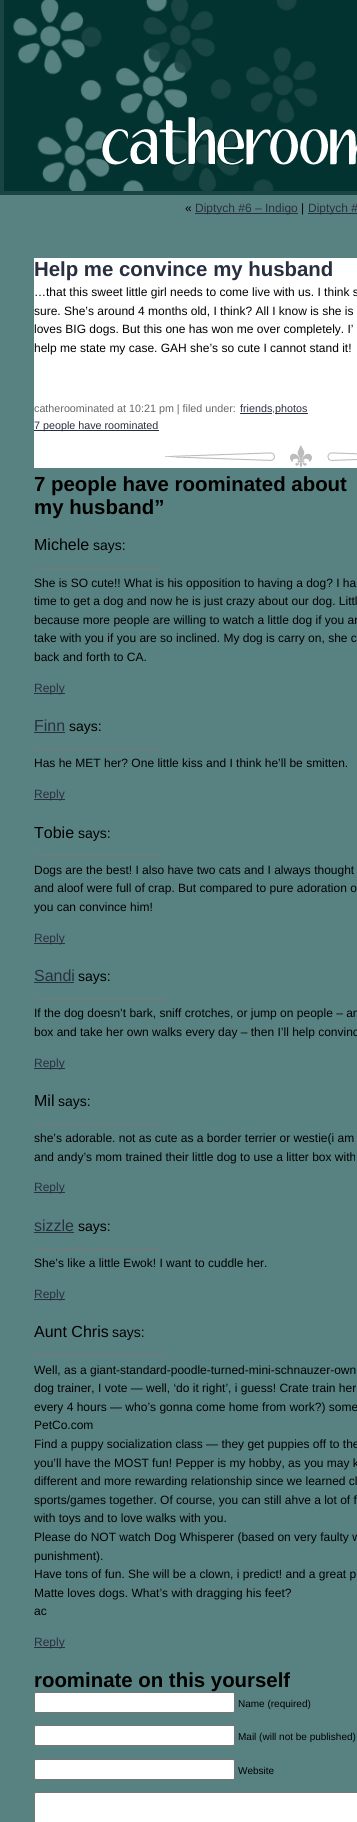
import math
import cairo



def rounded_rect(context, x, y, w, h, r):
    context.new_sub_path()
    for i, (u, v) in enumerate([(x + w - r, y + h - r), (x + r, y + h - r), (x + r, y + r), (x + w - r, y + r)]):
        context.arc(u, v, r, i * math.pi / 2, (i + 1) * math.pi / 2)
    context.close_path()


def draw_image(context, path, x, y, w, h):
    context.save()
    context.set_source_surface(cairo.ImageSurface.create_from_png(path), x, y)
    context.rectangle(x, y, w, h)
    context.fill()
    context.restore()


def draw(context):
    context.set_source_rgb(88 / 255, 130 / 255, 129 / 255)
    context.paint()
    context.rectangle(2, -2, 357, 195)
    context.set_source_rgb(25 / 255, 70 / 255, 67 / 255)
    context.set_line_width(4)
    context.stroke()
    draw_image(context, "images/1.png", 4, 0, 353, 191)
    context.set_source_rgb(40 / 255, 47 / 255, 63 / 255)
    context.rectangle(195, 213, 103, 1)
    context.fill()
    context.rectangle(308, 213, 49, 1)
    context.fill()
    context.set_source_rgb(1, 1, 1)
    context.rectangle(34, 258, 323, 210)
    context.fill()
    draw_image(context, "images/2.png", 165, 445, 192, 23)
    context.set_source_rgb(40 / 255, 47 / 255, 63 / 255)
    context.rectangle(240, 413, 32, 1)
    context.fill()
    context.rectangle(275, 413, 33, 1)
    context.fill()
    context.rectangle(34, 430, 125, 1)
    context.fill()
    context.set_source_rgb(119 / 255, 119 / 255, 119 / 255)
    context.rectangle(34, 568, 128, 1)
    context.fill()
    context.set_source_rgb(40 / 255, 47 / 255, 63 / 255)
    context.rectangle(34, 693, 31, 1)
    context.fill()
    context.rectangle(34, 732, 31, 1)
    context.fill()
    context.set_source_rgb(119 / 255, 119 / 255, 119 / 255)
    context.rectangle(34, 749, 128, 1)
    context.fill()
    context.set_source_rgb(40 / 255, 47 / 255, 63 / 255)
    context.rectangle(34, 799, 31, 1)
    context.fill()
    context.set_source_rgb(119 / 255, 119 / 255, 119 / 255)
    context.rectangle(34, 855, 128, 1)
    context.fill()
    context.set_source_rgb(40 / 255, 47 / 255, 63 / 255)
    context.rectangle(34, 943, 31, 1)
    context.fill()
    context.rectangle(34, 982, 40, 1)
    context.fill()
    context.set_source_rgb(119 / 255, 119 / 255, 119 / 255)
    context.rectangle(34, 999, 133, 1)
    context.fill()
    context.set_source_rgb(40 / 255, 47 / 255, 63 / 255)
    context.rectangle(34, 1068, 31, 1)
    context.fill()
    context.set_source_rgb(119 / 255, 119 / 255, 119 / 255)
    context.rectangle(34, 1124, 128, 1)
    context.fill()
    context.set_source_rgb(40 / 255, 47 / 255, 63 / 255)
    context.rectangle(34, 1192, 31, 1)
    context.fill()
    context.rectangle(34, 1232, 40, 1)
    context.fill()
    context.set_source_rgb(119 / 255, 119 / 255, 119 / 255)
    context.rectangle(34, 1249, 128, 1)
    context.fill()
    context.set_source_rgb(40 / 255, 47 / 255, 63 / 255)
    context.rectangle(34, 1299, 31, 1)
    context.fill()
    context.set_source_rgb(119 / 255, 119 / 255, 119 / 255)
    context.rectangle(34, 1355, 133, 1)
    context.fill()
    context.set_source_rgb(40 / 255, 47 / 255, 63 / 255)
    context.rectangle(34, 1647, 31, 1)
    context.fill()
    context.set_source_rgb(1, 1, 1)
    rounded_rect(context, 34.5, 1692.5, 200, 20, 1.5)
    context.fill_preserve()
    context.set_source_rgb(118 / 255, 118 / 255, 118 / 255)
    context.set_line_width(1)
    context.stroke()
    context.set_source_rgb(1, 1, 1)
    rounded_rect(context, 34.5, 1725.5, 200, 20, 1.5)
    context.fill_preserve()
    context.set_source_rgb(118 / 255, 118 / 255, 118 / 255)
    context.stroke()
    context.set_source_rgb(1, 1, 1)
    rounded_rect(context, 34.5, 1759.5, 200, 20, 1.5)
    context.fill_preserve()
    context.set_source_rgb(118 / 255, 118 / 255, 118 / 255)
    context.stroke()
    context.set_source_rgb(1, 1, 1)
    rounded_rect(context, 34.5, 1792.5, 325, 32, 1.5)
    context.fill_preserve()
    context.set_source_rgb(118 / 255, 118 / 255, 118 / 255)
    context.stroke()
    context.select_font_face("Liberation Sans")
    context.set_font_size(12)
    context.set_source_rgb(0, 0, 0)
    context.move_to(185, 212)
    context.show_text("«")
    context.set_source_rgb(40 / 255, 47 / 255, 63 / 255)
    context.move_to(195, 212)
    context.show_text("Diptych #6 – Indigo")
    context.set_source_rgb(0, 0, 0)
    context.move_to(301, 212)
    context.show_text("|")
    context.set_source_rgb(40 / 255, 47 / 255, 63 / 255)
    context.move_to(308, 212)
    context.show_text("Diptych #")
    context.select_font_face("Liberation Sans", cairo.FontSlant.NORMAL, cairo.FontWeight.BOLD)
    context.set_font_size(20.4)
    context.move_to(34, 276)
    context.show_text("Help me convince my husband")
    context.select_font_face("Liberation Sans")
    context.set_font_size(12)
    context.set_source_rgb(0, 0, 0)
    context.move_to(34, 296)
    context.show_text("…that this sweet little girl needs to come live with us. I think s")
    context.move_to(34, 315)
    context.show_text("sure. She’s around 4 months old, I think? All I know is she is")
    context.move_to(34, 333)
    context.show_text("loves BIG dogs. But this one has won me over completely. I’")
    context.move_to(34, 352)
    context.show_text("help me state my case. GAH she’s so cute I cannot stand it!")
    context.set_font_size(10.75)
    context.set_source_rgb(102 / 255, 102 / 255, 102 / 255)
    context.move_to(34, 412)
    context.show_text("catheroominated at 10:21 pm | filed under:")
    context.set_source_rgb(40 / 255, 47 / 255, 63 / 255)
    context.move_to(240, 412)
    context.show_text("friends")
    context.set_source_rgb(102 / 255, 102 / 255, 102 / 255)
    context.move_to(272, 412)
    context.show_text(",")
    context.set_source_rgb(40 / 255, 47 / 255, 63 / 255)
    context.move_to(275, 412)
    context.show_text("photos")
    context.move_to(34, 429)
    context.show_text("7 people have roominated")
    context.select_font_face("Liberation Sans", cairo.FontSlant.NORMAL, cairo.FontWeight.BOLD)
    context.set_font_size(20.4)
    context.set_source_rgb(0, 0, 0)
    context.move_to(34, 491)
    context.show_text("7 people have roominated about")
    context.move_to(34, 514)
    context.show_text("my husband”")
    context.select_font_face("Liberation Sans")
    context.set_font_size(16)
    context.move_to(34, 550)
    context.show_text("Michele")
    context.set_font_size(14)
    context.move_to(93, 550)
    context.show_text("says:")
    context.set_font_size(12)
    context.move_to(34, 587)
    context.show_text("She is SO cute!! What is his opposition to having a dog? I ha")
    context.move_to(34, 605)
    context.show_text("time to get a dog and now he is just crazy about our dog. Littl")
    context.move_to(34, 624)
    context.show_text("because more people are willing to watch a little dog if you ar")
    context.move_to(34, 642)
    context.show_text("take with you if you are so inclined. My dog is carry on, she c")
    context.move_to(34, 661)
    context.show_text("back and forth to CA.")
    context.set_source_rgb(40 / 255, 47 / 255, 63 / 255)
    context.move_to(34, 692)
    context.show_text("Reply")
    context.set_font_size(16)
    context.move_to(34, 731)
    context.show_text("Finn")
    context.set_font_size(14)
    context.set_source_rgb(0, 0, 0)
    context.move_to(69, 731)
    context.show_text("says:")
    context.set_font_size(12)
    context.move_to(34, 767)
    context.show_text("Has he MET her? One little kiss and I think he’ll be smitten.")
    context.set_source_rgb(40 / 255, 47 / 255, 63 / 255)
    context.move_to(34, 798)
    context.show_text("Reply")
    context.set_font_size(16)
    context.set_source_rgb(0, 0, 0)
    context.move_to(34, 838)
    context.show_text("Tobie")
    context.set_font_size(14)
    context.move_to(78, 838)
    context.show_text("says:")
    context.set_font_size(12)
    context.move_to(34, 874)
    context.show_text("Dogs are the best! I also have two cats and I always thought")
    context.move_to(34, 892)
    context.show_text("and aloof were full of crap. But compared to pure adoration o")
    context.move_to(34, 911)
    context.show_text("you can convince him!")
    context.set_source_rgb(40 / 255, 47 / 255, 63 / 255)
    context.move_to(34, 942)
    context.show_text("Reply")
    context.set_font_size(16)
    context.move_to(34, 981)
    context.show_text("Sandi")
    context.set_font_size(14)
    context.set_source_rgb(0, 0, 0)
    context.move_to(78, 981)
    context.show_text("says:")
    context.set_font_size(12)
    context.move_to(34, 1017)
    context.show_text("If the dog doesn’t bark, sniff crotches, or jump on people – an")
    context.move_to(34, 1036)
    context.show_text("box and take her own walks every day – then I’ll help convinc")
    context.set_source_rgb(40 / 255, 47 / 255, 63 / 255)
    context.move_to(34, 1067)
    context.show_text("Reply")
    context.set_font_size(16)
    context.set_source_rgb(0, 0, 0)
    context.move_to(34, 1106)
    context.show_text("Mil")
    context.set_font_size(14)
    context.move_to(58, 1106)
    context.show_text("says:")
    context.set_font_size(12)
    context.move_to(34, 1142)
    context.show_text("she’s adorable. not as cute as a border terrier or westie(i am")
    context.move_to(34, 1161)
    context.show_text("and andy’s mom trained their little dog to use a litter box with")
    context.set_source_rgb(40 / 255, 47 / 255, 63 / 255)
    context.move_to(34, 1191)
    context.show_text("Reply")
    context.set_font_size(16)
    context.move_to(34, 1231)
    context.show_text("sizzle")
    context.set_font_size(14)
    context.set_source_rgb(0, 0, 0)
    context.move_to(78, 1231)
    context.show_text("says:")
    context.set_font_size(12)
    context.move_to(34, 1267)
    context.show_text("She’s like a little Ewok! I want to cuddle her.")
    context.set_source_rgb(40 / 255, 47 / 255, 63 / 255)
    context.move_to(34, 1298)
    context.show_text("Reply")
    context.set_font_size(16)
    context.set_source_rgb(0, 0, 0)
    context.move_to(34, 1337)
    context.show_text("Aunt Chris")
    context.set_font_size(14)
    context.move_to(112, 1337)
    context.show_text("says:")
    context.set_font_size(12)
    context.move_to(34, 1374)
    context.show_text("Well, as a giant-standard-poodle-turned-mini-schnauzer-own")
    context.move_to(34, 1392)
    context.show_text("dog trainer, I vote — well, ‘do it right’, i guess! Crate train her")
    context.move_to(34, 1411)
    context.show_text("every 4 hours — who’s gonna come home from work?) some")
    context.move_to(34, 1429)
    context.show_text("PetCo.com")
    context.move_to(34, 1448)
    context.show_text("Find a puppy socialization class — they get puppies off to the")
    context.move_to(34, 1467)
    context.show_text("you’ll have the MOST fun! Pepper is my hobby, as you may k")
    context.move_to(34, 1485)
    context.show_text("different and more rewarding relationship since we learned cl")
    context.move_to(34, 1504)
    context.show_text("sports/games together. Of course, you can still ahve a lot of f")
    context.move_to(34, 1522)
    context.show_text("with toys and to love walks with you.")
    context.move_to(34, 1541)
    context.show_text("Please do NOT watch Dog Whisperer (based on very faulty w")
    context.move_to(34, 1560)
    context.show_text("punishment).")
    context.move_to(34, 1578)
    context.show_text("Have tons of fun. She will be a clown, i predict! and a great p")
    context.move_to(34, 1597)
    context.show_text("Matte loves dogs. What’s with dragging his feet?")
    context.move_to(34, 1615)
    context.show_text("ac")
    context.set_source_rgb(40 / 255, 47 / 255, 63 / 255)
    context.move_to(34, 1646)
    context.show_text("Reply")
    context.select_font_face("Liberation Sans", cairo.FontSlant.NORMAL, cairo.FontWeight.BOLD)
    context.set_font_size(20.4)
    context.set_source_rgb(0, 0, 0)
    context.move_to(34, 1687)
    context.show_text("roominate on this yourself")
    context.select_font_face("Liberation Sans")
    context.set_font_size(10)
    context.move_to(238, 1707)
    context.show_text("Name (required)")
    context.move_to(238, 1740)
    context.show_text("Mail (will not be published)")
    context.move_to(238, 1774)
    context.show_text("Website")


surface = cairo.ImageSurface(cairo.Format.RGB24, 357, 1822)
context = cairo.Context(surface)
options = cairo.FontOptions()
options.set_hint_metrics(cairo.HintMetrics.OFF)
options.set_hint_style(cairo.HintStyle.NONE)
context.set_font_options(options)
context.set_miter_limit(4)
draw(context)
surface.write_to_png("out.png")
